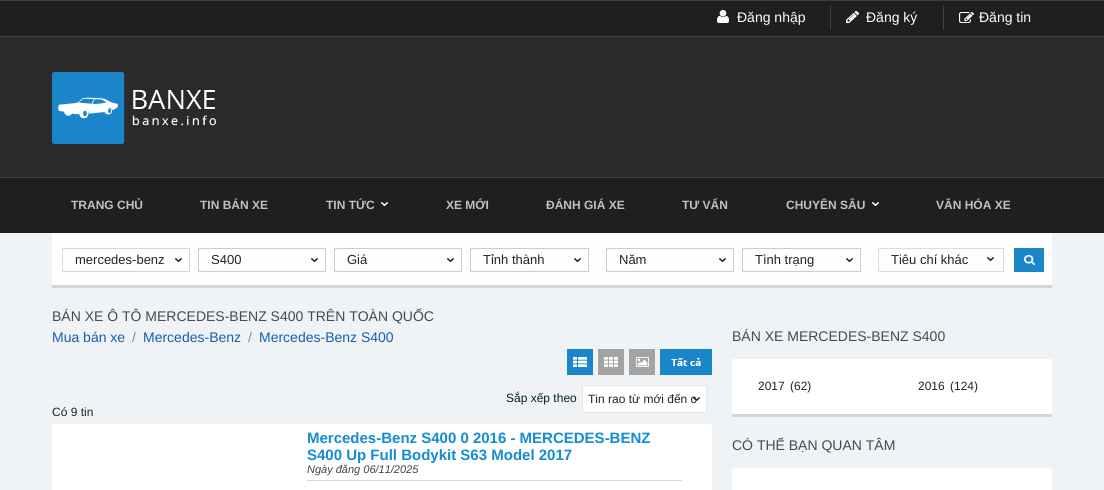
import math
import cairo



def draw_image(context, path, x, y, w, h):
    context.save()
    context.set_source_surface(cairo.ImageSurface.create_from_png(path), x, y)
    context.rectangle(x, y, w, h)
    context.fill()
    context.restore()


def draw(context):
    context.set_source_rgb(240 / 255, 243 / 255, 245 / 255)
    context.paint()
    context.set_source_rgb(31 / 255, 31 / 255, 31 / 255)
    context.rectangle(0, 1, 1104, 35)
    context.fill()
    context.set_source_rgb(64 / 255, 64 / 255, 64 / 255)
    context.rectangle(0, 0, 1104, 1)
    context.fill()
    context.rectangle(0, 36, 1104, 1)
    context.fill()
    draw_image(context, "images/1.png", 717, 10, 12, 13)
    context.rectangle(830, 5, 1, 25)
    context.fill()
    draw_image(context, "images/2.png", 846, 11, 13, 12)
    context.rectangle(943, 5, 1, 25)
    context.fill()
    draw_image(context, "images/3.png", 959, 12, 15, 11)
    context.set_source_rgb(42 / 255, 42 / 255, 42 / 255)
    context.rectangle(0, 37, 1104, 140)
    context.fill()
    draw_image(context, "images/4.png", 52, 72, 164, 72)
    context.set_source_rgb(31 / 255, 31 / 255, 31 / 255)
    context.rectangle(0, 178, 1104, 55)
    context.fill()
    context.set_source_rgb(64 / 255, 64 / 255, 64 / 255)
    context.rectangle(0, 177, 1104, 1)
    context.fill()
    draw_image(context, "images/5.png", 381, 202, 7, 4)
    draw_image(context, "images/5.png", 872, 202, 7, 4)
    context.set_source_rgb(254 / 255, 254 / 255, 254 / 255)
    context.rectangle(52, 233, 1000, 52)
    context.fill()
    context.set_source_rgb(206 / 255, 214 / 255, 219 / 255)
    context.rectangle(52, 285, 1000, 3)
    context.fill()
    context.rectangle(62.5, 248.5, 127, 23)
    context.set_source_rgb(212 / 255, 212 / 255, 212 / 255)
    context.set_line_width(1)
    context.stroke()
    draw_image(context, "images/6.png", 175, 258, 7, 4)
    context.rectangle(198.5, 248.5, 127, 23)
    context.set_source_rgb(204 / 255, 204 / 255, 204 / 255)
    context.stroke()
    draw_image(context, "images/6.png", 311, 258, 7, 4)
    context.rectangle(334.5, 248.5, 127, 23)
    context.stroke()
    draw_image(context, "images/6.png", 447, 258, 7, 4)
    context.rectangle(470.5, 248.5, 118, 23)
    context.stroke()
    draw_image(context, "images/6.png", 574, 258, 7, 4)
    context.rectangle(606.5, 248.5, 127, 23)
    context.stroke()
    draw_image(context, "images/6.png", 719, 258, 7, 4)
    context.rectangle(742.5, 248.5, 118, 23)
    context.stroke()
    draw_image(context, "images/6.png", 846, 258, 7, 4)
    context.rectangle(878.5, 248.5, 125, 23)
    context.set_source_rgb(220 / 255, 220 / 255, 220 / 255)
    context.stroke()
    draw_image(context, "images/6.png", 987, 257, 7, 4)
    draw_image(context, "images/7.png", 1014, 248, 30, 24)
    draw_image(context, "images/8.png", 567, 349, 26, 26)
    draw_image(context, "images/9.png", 598, 349, 26, 26)
    draw_image(context, "images/10.png", 629, 349, 26, 26)
    draw_image(context, "images/11.png", 660, 349, 52, 26)
    context.set_source_rgb(1, 1, 1)
    context.rectangle(582.5, 385.5, 124, 27)
    context.fill_preserve()
    context.set_source_rgb(230 / 255, 230 / 255, 230 / 255)
    context.stroke()
    context.set_source_rgb(1, 1, 1)
    context.rectangle(52, 424, 660, 66)
    context.fill()
    context.set_source_rgb(216 / 255, 216 / 255, 216 / 255)
    context.rectangle(307, 480, 375, 1)
    context.fill()
    context.set_source_rgb(1, 1, 1)
    context.rectangle(732, 359, 320, 131)
    context.fill()
    context.set_source_rgb(206 / 255, 214 / 255, 219 / 255)
    context.rectangle(732, 414, 320, 3)
    context.fill()
    context.set_source_rgb(240 / 255, 243 / 255, 245 / 255)
    context.rectangle(732, 417, 320, 51)
    context.fill()
    context.select_font_face("Liberation Sans")
    context.set_font_size(14)
    context.set_source_rgb(1, 1, 1)
    context.move_to(737, 22)
    context.show_text("Đăng nhập")
    context.move_to(866, 22)
    context.show_text("Đăng ký")
    context.move_to(979, 22)
    context.show_text("Đăng tin")
    context.select_font_face("Liberation Sans", cairo.FontSlant.NORMAL, cairo.FontWeight.BOLD)
    context.set_font_size(12)
    context.set_source_rgb(193 / 255, 193 / 255, 193 / 255)
    context.move_to(71, 209)
    context.show_text("TRANG CHỦ")
    context.move_to(200, 209)
    context.show_text("TIN BÁN XE")
    context.move_to(326, 209)
    context.show_text("TIN TỨC")
    context.move_to(446, 209)
    context.show_text("XE MỚI")
    context.move_to(546, 209)
    context.show_text("ĐÁNH GIÁ XE")
    context.move_to(682, 209)
    context.show_text("TƯ VẤN")
    context.move_to(786, 209)
    context.show_text("CHUYÊN SÂU")
    context.move_to(936, 209)
    context.show_text("VĂN HÓA XE")
    context.select_font_face("Liberation Sans")
    context.set_font_size(13)
    context.set_source_rgb(34 / 255, 34 / 255, 34 / 255)
    context.move_to(75, 264)
    context.show_text("mercedes-benz")
    context.move_to(211, 264)
    context.show_text("S400")
    context.move_to(347, 264)
    context.show_text("Giá")
    context.move_to(483, 264)
    context.show_text("Tỉnh thành")
    context.move_to(619, 264)
    context.show_text("Năm")
    context.move_to(755, 264)
    context.show_text("Tình trạng")
    context.move_to(891, 264)
    context.show_text("Tiêu chí khác")
    context.set_font_size(14)
    context.set_source_rgb(63 / 255, 75 / 255, 86 / 255)
    context.move_to(52, 321)
    context.show_text("BÁN XE Ô TÔ MERCEDES-BENZ S400 TRÊN TOÀN QUỐC")
    context.set_source_rgb(19 / 255, 94 / 255, 172 / 255)
    context.move_to(52, 342)
    context.show_text("Mua bán xe")
    context.set_source_rgb(136 / 255, 136 / 255, 136 / 255)
    context.move_to(132, 342)
    context.show_text("/")
    context.set_source_rgb(19 / 255, 94 / 255, 172 / 255)
    context.move_to(143, 342)
    context.show_text("Mercedes-Benz")
    context.set_source_rgb(136 / 255, 136 / 255, 136 / 255)
    context.move_to(248, 342)
    context.show_text("/")
    context.set_source_rgb(19 / 255, 94 / 255, 172 / 255)
    context.move_to(259, 342)
    context.show_text("Mercedes-Benz S400")
    context.set_font_size(12)
    context.set_source_rgb(2 / 255, 34 / 255, 34 / 255)
    context.move_to(506, 402)
    context.show_text("Sắp xếp theo")
    context.set_source_rgb(34 / 255, 34 / 255, 34 / 255)
    context.move_to(588, 403)
    context.show_text("Tin rao từ mới đến c")
    draw_image(context, "images/12.png", 693, 397, 7, 4)
    context.move_to(52, 416)
    context.show_text("Có 9 tin")
    context.select_font_face("Liberation Sans", cairo.FontSlant.NORMAL, cairo.FontWeight.BOLD)
    context.set_font_size(15)
    context.set_source_rgb(19 / 255, 140 / 255, 208 / 255)
    context.move_to(307, 443)
    context.show_text("Mercedes-Benz S400 0 2016 - MERCEDES-BENZ")
    context.move_to(307, 460)
    context.show_text("S400 Up Full Bodykit S63 Model 2017")
    context.select_font_face("Liberation Sans", cairo.FontSlant.ITALIC)
    context.set_font_size(11)
    context.set_source_rgb(57 / 255, 67 / 255, 76 / 255)
    context.move_to(307, 473)
    context.show_text("Ngày đăng 06/11/2025")
    context.select_font_face("Liberation Sans")
    context.set_font_size(14)
    context.set_source_rgb(63 / 255, 75 / 255, 86 / 255)
    context.move_to(732, 341)
    context.show_text("BÁN XE MERCEDES-BENZ S400")
    context.set_font_size(12)
    context.set_source_rgb(34 / 255, 34 / 255, 34 / 255)
    context.move_to(758, 390)
    context.show_text("2017")
    context.move_to(790, 390)
    context.show_text("(62)")
    context.move_to(918, 390)
    context.show_text("2016")
    context.move_to(950, 390)
    context.show_text("(124)")
    context.set_font_size(14)
    context.set_source_rgb(63 / 255, 75 / 255, 86 / 255)
    context.move_to(732, 450)
    context.show_text("CÓ THỂ BẠN QUAN TÂM")


surface = cairo.ImageSurface(cairo.Format.RGB24, 1104, 490)
context = cairo.Context(surface)
options = cairo.FontOptions()
options.set_hint_metrics(cairo.HintMetrics.OFF)
options.set_hint_style(cairo.HintStyle.NONE)
context.set_font_options(options)
context.set_miter_limit(4)
draw(context)
surface.write_to_png("out.png")
